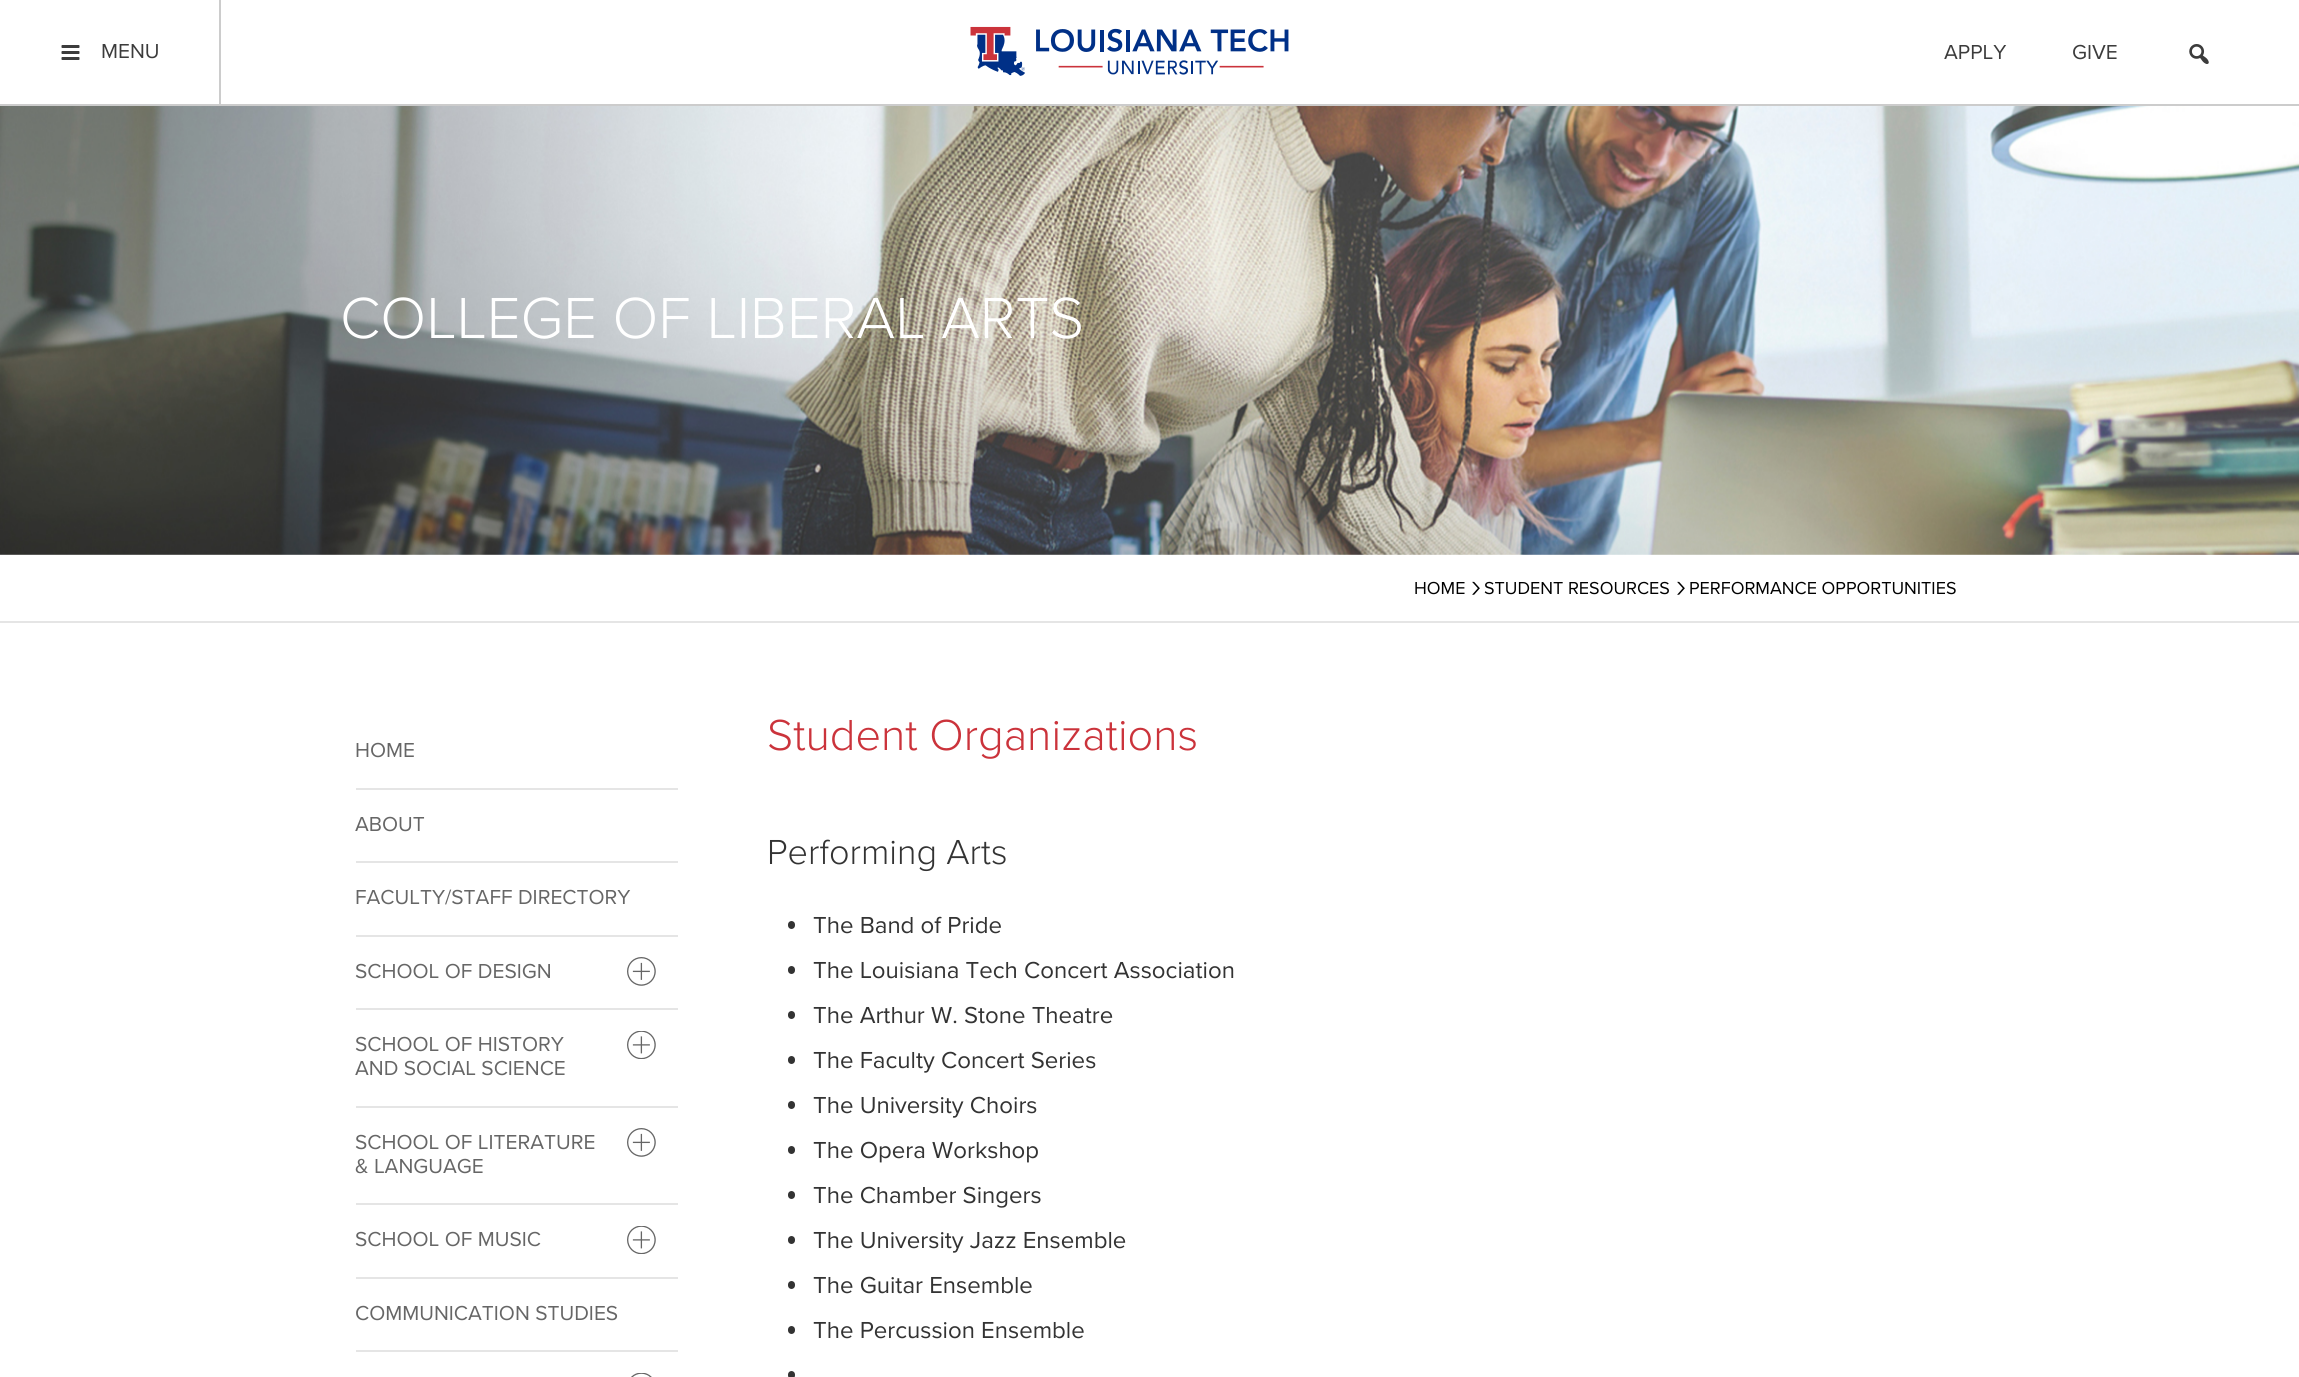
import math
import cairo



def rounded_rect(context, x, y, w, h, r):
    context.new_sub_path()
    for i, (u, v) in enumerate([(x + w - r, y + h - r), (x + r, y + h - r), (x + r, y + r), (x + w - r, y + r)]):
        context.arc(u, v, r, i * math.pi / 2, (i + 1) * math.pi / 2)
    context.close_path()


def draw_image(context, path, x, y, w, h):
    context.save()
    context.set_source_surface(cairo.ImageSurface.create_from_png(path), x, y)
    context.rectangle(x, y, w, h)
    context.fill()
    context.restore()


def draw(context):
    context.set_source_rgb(1, 1, 1)
    context.paint()
    context.set_source_rgb(204 / 255, 204 / 255, 204 / 255)
    context.rectangle(0, 104, 2299, 2)
    context.fill()
    context.rectangle(219, 0, 2, 105)
    context.fill()
    draw_image(context, "images/1.png", 61, 45, 19, 15)
    draw_image(context, "images/2.png", 970, 26, 319, 50)
    draw_image(context, "images/3.png", 2189, 44, 20, 20)
    draw_image(context, "images/4.png", 0, 106, 2299, 449)
    context.set_source_rgb(229 / 255, 229 / 255, 229 / 255)
    context.rectangle(0, 621, 2299, 2)
    context.fill()
    context.rectangle(356, 788, 322, 2)
    context.fill()
    context.rectangle(356, 861, 322, 2)
    context.fill()
    context.rectangle(356, 935, 322, 2)
    context.fill()
    context.rectangle(356, 1008, 322, 2)
    context.fill()
    draw_image(context, "images/5.png", 627, 957, 29, 29)
    context.rectangle(356, 1106, 322, 2)
    context.fill()
    draw_image(context, "images/6.png", 627, 1031, 29, 28)
    context.rectangle(356, 1203, 322, 2)
    context.fill()
    draw_image(context, "images/5.png", 627, 1128, 29, 29)
    context.rectangle(356, 1277, 322, 2)
    context.fill()
    draw_image(context, "images/6.png", 627, 1226, 29, 28)
    context.rectangle(356, 1350, 322, 2)
    context.fill()
    draw_image(context, "images/7.png", 631, 1373, 21, 4)
    context.set_source_rgb(51 / 255, 51 / 255, 51 / 255)
    rounded_rect(context, 788, 921, 7, 8, 3.5)
    context.fill()
    rounded_rect(context, 788, 966, 7, 8, 3.5)
    context.fill()
    rounded_rect(context, 788, 1011, 7, 8, 3.5)
    context.fill()
    rounded_rect(context, 788, 1056, 7, 8, 3.5)
    context.fill()
    rounded_rect(context, 788, 1101, 7, 8, 3.5)
    context.fill()
    rounded_rect(context, 788, 1146, 7, 8, 3.5)
    context.fill()
    rounded_rect(context, 788, 1191, 7, 8, 3.5)
    context.fill()
    rounded_rect(context, 788, 1236, 7, 8, 3.5)
    context.fill()
    rounded_rect(context, 788, 1281, 7, 8, 3.5)
    context.fill()
    rounded_rect(context, 788, 1326, 7, 8, 3.5)
    context.fill()
    rounded_rect(context, 788, 1371, 7, 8, 3.5)
    context.fill()
    context.select_font_face("Proxima Nova")
    context.set_font_size(21)
    context.set_source_rgb(60 / 255, 60 / 255, 60 / 255)
    context.move_to(101, 58)
    context.show_text("MENU")
    context.move_to(1944, 59)
    context.show_text("APPLY")
    context.move_to(2072, 59)
    context.show_text("GIVE")
    context.select_font_face("Proxima Nova Light")
    context.set_font_size(60)
    context.set_source_rgb(1, 1, 1)
    context.move_to(340, 338)
    context.show_text("COLLEGE OF LIBERAL ARTS")
    context.select_font_face("Proxima Nova")
    context.set_font_size(18)
    context.set_source_rgb(0, 0, 0)
    context.move_to(1414, 594)
    context.show_text("HOME")
    context.select_font_face("Proxima Nova Light")
    context.set_font_size(36)
    context.move_to(1471, 597)
    context.show_text("›")
    context.select_font_face("Proxima Nova")
    context.set_font_size(18)
    context.move_to(1484, 594)
    context.show_text("STUDENT RESOURCES")
    context.select_font_face("Proxima Nova Light")
    context.set_font_size(36)
    context.move_to(1676, 597)
    context.show_text("›")
    context.select_font_face("Proxima Nova")
    context.set_font_size(18)
    context.move_to(1689, 594)
    context.show_text("PERFORMANCE OPPORTUNITIES")
    context.set_font_size(21)
    context.set_source_rgb(102 / 255, 102 / 255, 102 / 255)
    context.move_to(355, 757)
    context.show_text("HOME")
    context.move_to(355, 831)
    context.show_text("ABOUT")
    context.move_to(355, 904)
    context.show_text("FACULTY/STAFF DIRECTORY")
    context.move_to(355, 978)
    context.show_text("SCHOOL OF DESIGN")
    context.move_to(355, 1051)
    context.show_text("SCHOOL OF HISTORY")
    context.move_to(355, 1075)
    context.show_text("AND SOCIAL SCIENCE")
    context.move_to(355, 1149)
    context.show_text("SCHOOL OF LITERATURE")
    context.move_to(355, 1173)
    context.show_text("& LANGUAGE")
    context.move_to(355, 1246)
    context.show_text("SCHOOL OF MUSIC")
    context.move_to(355, 1320)
    context.show_text("COMMUNICATION STUDIES")
    context.select_font_face("Proxima Nova Light")
    context.set_font_size(45)
    context.set_source_rgb(203 / 255, 51 / 255, 59 / 255)
    context.move_to(767, 750)
    context.show_text("Student Organizations")
    context.set_font_size(36)
    context.set_source_rgb(51 / 255, 51 / 255, 51 / 255)
    context.move_to(767, 864)
    context.show_text("Performing Arts")
    context.select_font_face("Proxima Nova")
    context.set_font_size(24)
    context.move_to(813, 933)
    context.show_text("The Band of Pride")
    context.move_to(813, 978)
    context.show_text("The Louisiana Tech Concert Association")
    context.move_to(813, 1023)
    context.show_text("The Arthur W. Stone Theatre")
    context.move_to(813, 1068)
    context.show_text("The Faculty Concert Series")
    context.move_to(813, 1113)
    context.show_text("The University Choirs")
    context.move_to(813, 1158)
    context.show_text("The Opera Workshop")
    context.move_to(813, 1203)
    context.show_text("The Chamber Singers")
    context.move_to(813, 1248)
    context.show_text("The University Jazz Ensemble")
    context.move_to(813, 1293)
    context.show_text("The Guitar Ensemble")
    context.move_to(813, 1338)
    context.show_text("The Percussion Ensemble")


surface = cairo.ImageSurface(cairo.Format.RGB24, 2299, 1377)
context = cairo.Context(surface)
options = cairo.FontOptions()
options.set_hint_metrics(cairo.HintMetrics.OFF)
options.set_hint_style(cairo.HintStyle.NONE)
context.set_font_options(options)
context.set_miter_limit(4)
draw(context)
surface.write_to_png("out.png")
